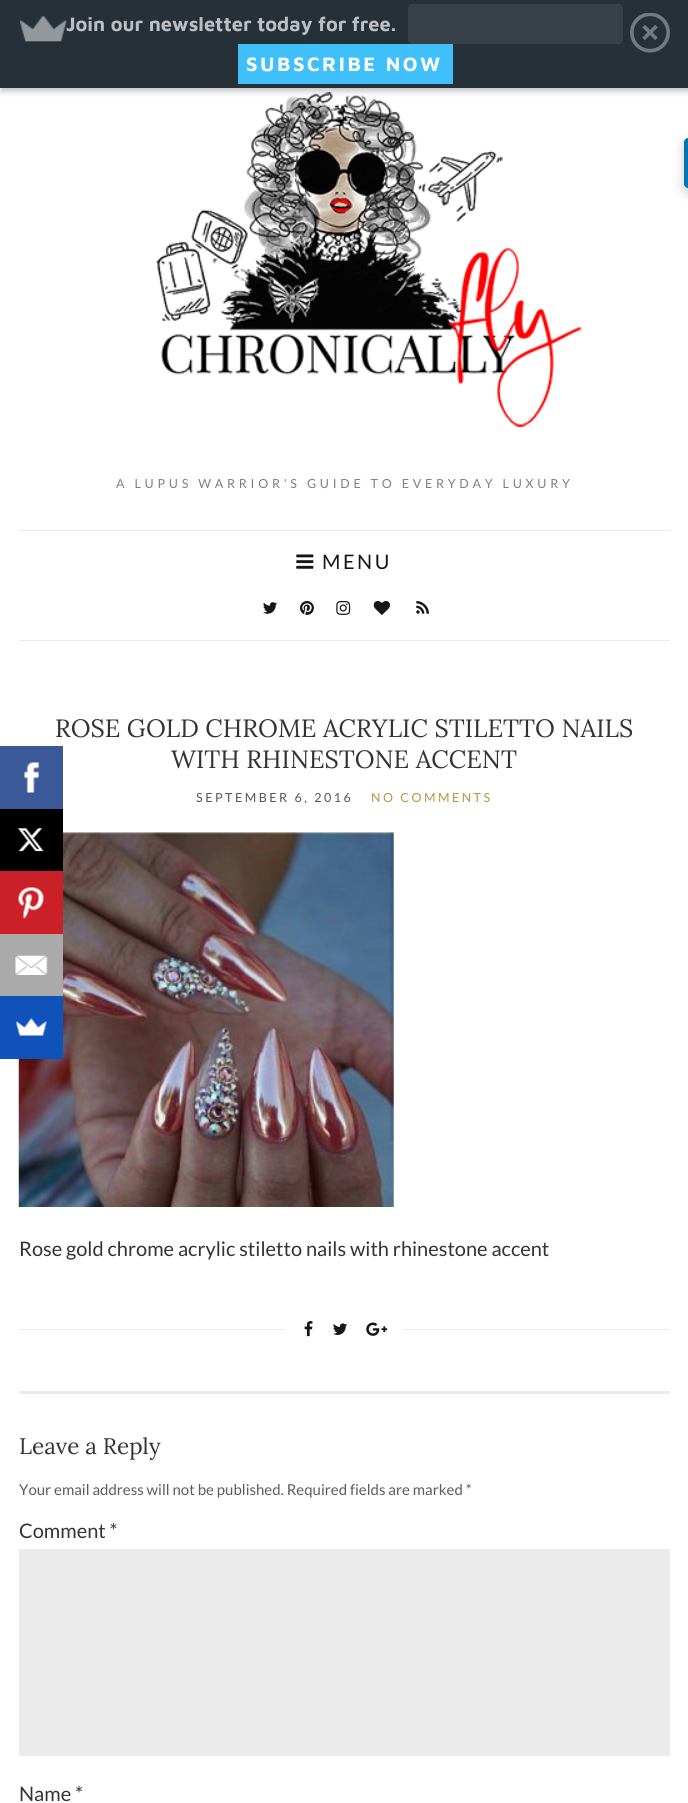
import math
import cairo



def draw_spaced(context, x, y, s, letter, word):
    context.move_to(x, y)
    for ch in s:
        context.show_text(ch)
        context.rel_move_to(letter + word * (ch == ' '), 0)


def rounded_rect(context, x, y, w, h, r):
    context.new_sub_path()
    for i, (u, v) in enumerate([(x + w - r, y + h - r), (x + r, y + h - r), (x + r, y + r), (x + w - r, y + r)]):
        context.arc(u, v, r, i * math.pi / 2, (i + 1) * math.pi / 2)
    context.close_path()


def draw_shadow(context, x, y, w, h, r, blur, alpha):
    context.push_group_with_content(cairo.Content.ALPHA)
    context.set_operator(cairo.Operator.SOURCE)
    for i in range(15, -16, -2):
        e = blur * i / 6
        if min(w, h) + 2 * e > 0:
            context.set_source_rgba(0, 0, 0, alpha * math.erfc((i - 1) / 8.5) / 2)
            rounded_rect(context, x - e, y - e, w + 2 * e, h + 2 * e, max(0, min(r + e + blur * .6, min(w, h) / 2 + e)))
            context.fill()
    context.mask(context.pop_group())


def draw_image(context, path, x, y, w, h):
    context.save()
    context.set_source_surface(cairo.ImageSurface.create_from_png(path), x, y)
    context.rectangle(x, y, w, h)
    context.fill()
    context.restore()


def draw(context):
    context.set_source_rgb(1, 1, 1)
    context.paint()
    draw_image(context, "images/3.png", 156, 92, 426, 336)
    context.set_source_rgb(0, 0, 0)
    draw_shadow(context, 1, 4, 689, 87, 0, 3, 0.25)
    context.set_source_rgb(38 / 255, 48 / 255, 57 / 255)
    context.rectangle(0, 0, 688, 88)
    context.fill()
    context.set_source_rgb(56 / 255, 65 / 255, 74 / 255)
    rounded_rect(context, 408, 4, 215, 40, 5)
    context.fill()
    draw_image(context, "images/2.png", 630, 13, 40, 40)
    context.set_source_rgb(64 / 255, 192 / 255, 250 / 255)
    context.rectangle(238, 44, 215, 40)
    context.fill()
    context.set_source_rgb(0, 0, 0)
    draw_shadow(context, 684, 143, 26, 50, 4, 6, 0.2)
    context.set_source_rgb(0, 115 / 255, 183 / 255)
    context.new_path()
    context.move_to(688, 138)
    context.line_to(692, 138)
    context.line_to(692, 188)
    context.line_to(688, 188)
    context.curve_to(686, 188, 684, 186, 684, 184)
    context.line_to(684, 142)
    context.curve_to(684, 140, 686, 138, 688, 138)
    context.close_path()
    context.fill()
    context.set_source_rgb(235 / 255, 235 / 255, 235 / 255)
    context.rectangle(19, 530, 651, 1)
    context.fill()
    context.rectangle(19, 640, 651, 1)
    context.fill()
    draw_image(context, "images/4.png", 296, 554, 18, 15)
    draw_image(context, "images/5.png", 263, 602, 14, 12)
    draw_image(context, "images/6.png", 300, 601, 14, 14)
    draw_image(context, "images/7.png", 336, 601, 15, 14)
    draw_image(context, "images/8.png", 373, 601, 17, 14)
    draw_image(context, "images/9.png", 416, 601, 13, 13)
    draw_image(context, "images/10.png", 18, 832, 376, 375)
    context.rectangle(19, 1329, 651, 1)
    context.fill()
    context.set_source_rgb(1, 1, 1)
    context.rectangle(285, 1329, 119, 1)
    context.fill()
    draw_image(context, "images/11.png", 304, 1321, 9, 16)
    draw_image(context, "images/12.png", 333, 1323, 14, 12)
    draw_image(context, "images/13.png", 366, 1322, 22, 14)
    context.set_source_rgb(235 / 255, 235 / 255, 235 / 255)
    context.rectangle(19, 1391, 651, 3)
    context.fill()
    context.rectangle(19, 1549, 651, 207)
    context.fill()
    context.set_source_rgb(59 / 255, 89 / 255, 152 / 255)
    context.rectangle(0, 746, 63, 63)
    context.fill()
    draw_image(context, "images/14.png", 24, 762, 16, 31)
    context.set_source_rgb(0, 0, 0)
    context.rectangle(0, 809, 63, 62)
    context.fill()
    draw_image(context, "images/15.png", 17, 828, 27, 24)
    context.set_source_rgb(203 / 255, 32 / 255, 39 / 255)
    context.rectangle(0, 871, 63, 63)
    context.fill()
    draw_image(context, "images/16.png", 18, 887, 26, 32)
    context.set_source_rgb(170 / 255, 170 / 255, 170 / 255)
    context.rectangle(0, 934, 63, 62)
    context.fill()
    draw_image(context, "images/17.png", 15, 955, 33, 20)
    context.set_source_rgb(15 / 255, 82 / 255, 186 / 255)
    context.rectangle(0, 996, 63, 63)
    context.fill()
    draw_image(context, "images/18.png", 16, 1018, 31, 18)
    context.select_font_face("Maven Pro", cairo.FontSlant.NORMAL, cairo.FontWeight.BOLD)
    context.set_font_size(20)
    context.set_source_rgb(189 / 255, 192 / 255, 195 / 255)
    context.move_to(66, 31)
    context.show_text("Join our newsletter today for free.")
    draw_image(context, "images/1.png", 19, 16, 48, 26)
    context.set_source_rgb(1, 1, 1)
    draw_spaced(context, 246, 71, "SUBSCRIBE NOW", 2.5, 0)
    context.select_font_face("Lato")
    context.set_font_size(12.5)
    context.set_source_rgb(126 / 255, 126 / 255, 126 / 255)
    draw_spaced(context, 116, 488, "A LUPUS WARRIOR'S GUIDE TO EVERYDAY LUXURY", 3.75, 0)
    context.set_font_size(20)
    context.set_source_rgb(22 / 255, 22 / 255, 22 / 255)
    draw_spaced(context, 322, 569, "MENU", 2.5, 0)
    context.select_font_face("Lora")
    context.set_font_size(25)
    context.set_source_rgb(51 / 255, 51 / 255, 51 / 255)
    context.move_to(55, 737)
    context.show_text("ROSE GOLD CHROME ACRYLIC STILETTO NAILS")
    context.move_to(171, 768)
    context.show_text("WITH RHINESTONE ACCENT")
    context.select_font_face("Lato")
    context.set_font_size(12.5)
    context.set_source_rgb(84 / 255, 84 / 255, 84 / 255)
    draw_spaced(context, 196, 802, "SEPTEMBER 6, 2016", 2.5, 0)
    context.set_source_rgb(180 / 255, 149 / 255, 67 / 255)
    draw_spaced(context, 371, 802, "NO COMMENTS", 2.5, 0)
    context.set_font_size(20)
    context.set_source_rgb(51 / 255, 51 / 255, 51 / 255)
    context.move_to(19, 1256)
    context.show_text("Rose gold chrome acrylic stiletto nails with rhinestone accent")
    context.select_font_face("Lora")
    context.set_font_size(22.5)
    context.move_to(19, 1454)
    context.show_text("Leave a Reply")
    context.select_font_face("Lato")
    context.set_font_size(15)
    context.set_source_rgb(92 / 255, 92 / 255, 92 / 255)
    context.move_to(19, 1495)
    context.show_text("Your email address will not be published. Required fields are marked *")
    context.set_font_size(20)
    context.set_source_rgb(51 / 255, 51 / 255, 51 / 255)
    context.move_to(19, 1538)
    context.show_text("Comment *")
    context.move_to(19, 1801)
    context.show_text("Name *")


surface = cairo.ImageSurface(cairo.Format.RGB24, 688, 1803)
context = cairo.Context(surface)
options = cairo.FontOptions()
options.set_hint_metrics(cairo.HintMetrics.OFF)
options.set_hint_style(cairo.HintStyle.NONE)
context.set_font_options(options)
context.set_miter_limit(4)
draw(context)
surface.write_to_png("out.png")
